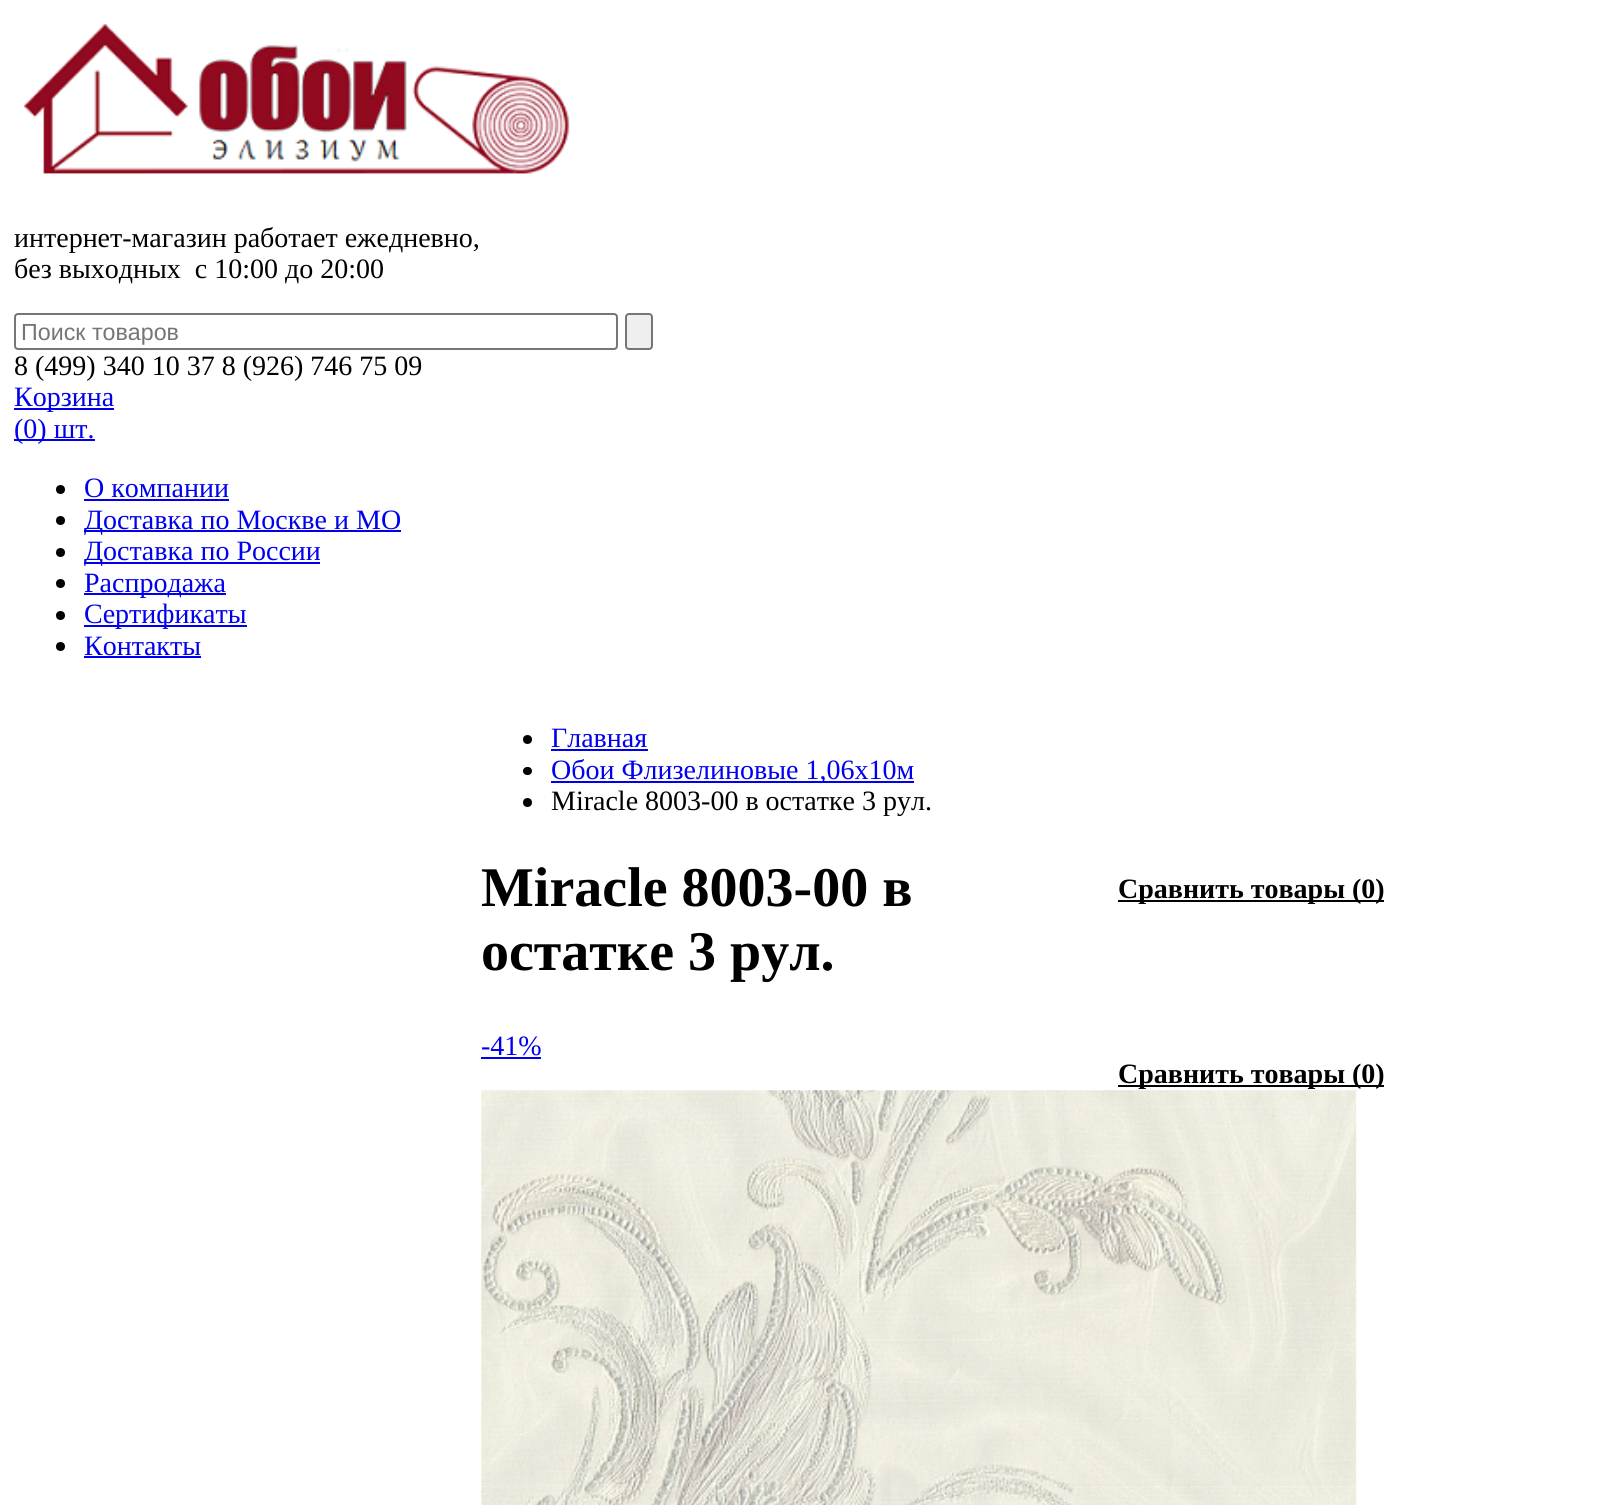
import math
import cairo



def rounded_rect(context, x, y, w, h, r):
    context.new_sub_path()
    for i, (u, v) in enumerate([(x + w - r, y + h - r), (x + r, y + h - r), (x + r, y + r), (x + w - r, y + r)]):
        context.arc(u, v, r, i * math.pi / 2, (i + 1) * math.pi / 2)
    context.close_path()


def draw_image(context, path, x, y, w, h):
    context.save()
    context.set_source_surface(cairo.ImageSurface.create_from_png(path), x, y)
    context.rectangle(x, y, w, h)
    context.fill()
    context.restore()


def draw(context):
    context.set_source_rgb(1, 1, 1)
    context.paint()
    draw_image(context, "images/1.png", 24, 24, 546, 150)
    rounded_rect(context, 15, 314, 602, 35, 3)
    context.set_source_rgb(118 / 255, 118 / 255, 118 / 255)
    context.stroke()
    context.set_source_rgb(239 / 255, 239 / 255, 239 / 255)
    rounded_rect(context, 626, 314, 26, 35, 3)
    context.fill_preserve()
    context.set_source_rgb(118 / 255, 118 / 255, 118 / 255)
    context.stroke()
    context.set_source_rgb(0, 0, 238 / 255)
    context.rectangle(14, 408, 100, 2)
    context.fill()
    context.rectangle(14, 439, 81, 2)
    context.fill()
    context.set_source_rgb(0, 0, 0)
    context.arc(60.5, 489.5, 4.5, 0, 2 * math.pi)
    context.fill()
    context.set_source_rgb(0, 0, 238 / 255)
    context.rectangle(84, 499, 145, 2)
    context.fill()
    context.set_source_rgb(0, 0, 0)
    context.arc(60.5, 520.5, 4.5, 0, 2 * math.pi)
    context.fill()
    context.set_source_rgb(0, 0, 238 / 255)
    context.rectangle(84, 530, 317, 2)
    context.fill()
    context.set_source_rgb(0, 0, 0)
    context.arc(60.5, 552.5, 4.5, 0, 2 * math.pi)
    context.fill()
    context.set_source_rgb(0, 0, 238 / 255)
    context.rectangle(84, 562, 236, 2)
    context.fill()
    context.set_source_rgb(0, 0, 0)
    context.arc(60.5, 583.5, 4.5, 0, 2 * math.pi)
    context.fill()
    context.set_source_rgb(0, 0, 238 / 255)
    context.rectangle(84, 593, 142, 2)
    context.fill()
    context.set_source_rgb(0, 0, 0)
    context.arc(60.5, 615.5, 4.5, 0, 2 * math.pi)
    context.fill()
    context.set_source_rgb(0, 0, 238 / 255)
    context.rectangle(84, 625, 163, 2)
    context.fill()
    context.set_source_rgb(0, 0, 0)
    context.arc(60.5, 646.5, 4.5, 0, 2 * math.pi)
    context.fill()
    context.set_source_rgb(0, 0, 238 / 255)
    context.rectangle(84, 656, 117, 2)
    context.fill()
    context.set_source_rgb(0, 0, 0)
    context.arc(527.5, 739.5, 4.5, 0, 2 * math.pi)
    context.fill()
    context.set_source_rgb(0, 0, 238 / 255)
    context.rectangle(551, 749, 97, 2)
    context.fill()
    context.set_source_rgb(0, 0, 0)
    rounded_rect(context, 523, 767, 9, 8, 4)
    context.fill()
    context.set_source_rgb(0, 0, 238 / 255)
    context.rectangle(551, 781, 363, 2)
    context.fill()
    context.set_source_rgb(0, 0, 0)
    context.arc(527.5, 802.5, 4.5, 0, 2 * math.pi)
    context.fill()
    context.rectangle(1118, 900, 266, 2)
    context.fill()
    context.set_source_rgb(0, 0, 238 / 255)
    context.rectangle(481, 1057, 60, 2)
    context.fill()
    draw_image(context, "images/2.png", 481, 1090, 876, 415)
    context.set_source_rgb(0, 0, 0)
    context.rectangle(1118, 1085, 266, 2)
    context.fill()
    context.select_font_face("Liberation Serif")
    context.set_font_size(28)
    context.move_to(14, 247)
    context.show_text("интернет-магазин работает ежедневно,")
    context.move_to(14, 278)
    context.show_text("без выходных  c 10:00 до 20:00")
    context.select_font_face("Liberation Sans")
    context.set_font_size(23.25)
    context.set_source_rgb(117 / 255, 117 / 255, 117 / 255)
    context.move_to(21, 340)
    context.show_text("Поиск товаров")
    context.select_font_face("Liberation Serif")
    context.set_font_size(28)
    context.set_source_rgb(0, 0, 0)
    context.move_to(14, 375)
    context.show_text("8 (499) 340 10 37 8 (926) 746 75 09")
    context.set_source_rgb(0, 0, 238 / 255)
    context.move_to(14, 406)
    context.show_text("Корзина")
    context.move_to(14, 438)
    context.show_text("(0) шт.")
    context.move_to(84, 497)
    context.show_text("О компании")
    context.move_to(84, 529)
    context.show_text("Доставка по Москве и МО")
    context.move_to(84, 560)
    context.show_text("Доставка по России")
    context.move_to(84, 592)
    context.show_text("Распродажа")
    context.move_to(84, 623)
    context.show_text("Сертификаты")
    context.move_to(84, 655)
    context.show_text("Контакты")
    context.move_to(551, 747)
    context.show_text("Главная")
    context.move_to(551, 779)
    context.show_text("Обои Флизелиновые 1,06х10м")
    context.set_source_rgb(0, 0, 0)
    context.move_to(551, 810)
    context.show_text("Miracle 8003-00 в остатке 3 рул.")
    context.select_font_face("Liberation Serif", cairo.FontSlant.NORMAL, cairo.FontWeight.BOLD)
    context.set_font_size(56)
    context.move_to(481, 906)
    context.show_text("Miracle 8003-00 в")
    context.move_to(481, 970)
    context.show_text("остатке 3 рул.")
    context.set_font_size(28)
    context.move_to(1118, 898)
    context.show_text("Сравнить товары (0)")
    context.select_font_face("Liberation Serif")
    context.set_source_rgb(0, 0, 238 / 255)
    context.move_to(481, 1055)
    context.show_text("-41%")
    context.select_font_face("Liberation Serif", cairo.FontSlant.NORMAL, cairo.FontWeight.BOLD)
    context.set_source_rgb(0, 0, 0)
    context.move_to(1118, 1083)
    context.show_text("Сравнить товары (0)")


surface = cairo.ImageSurface(cairo.Format.RGB24, 1617, 1505)
context = cairo.Context(surface)
options = cairo.FontOptions()
options.set_hint_metrics(cairo.HintMetrics.OFF)
options.set_hint_style(cairo.HintStyle.NONE)
context.set_font_options(options)
context.set_miter_limit(4)
draw(context)
surface.write_to_png("out.png")
